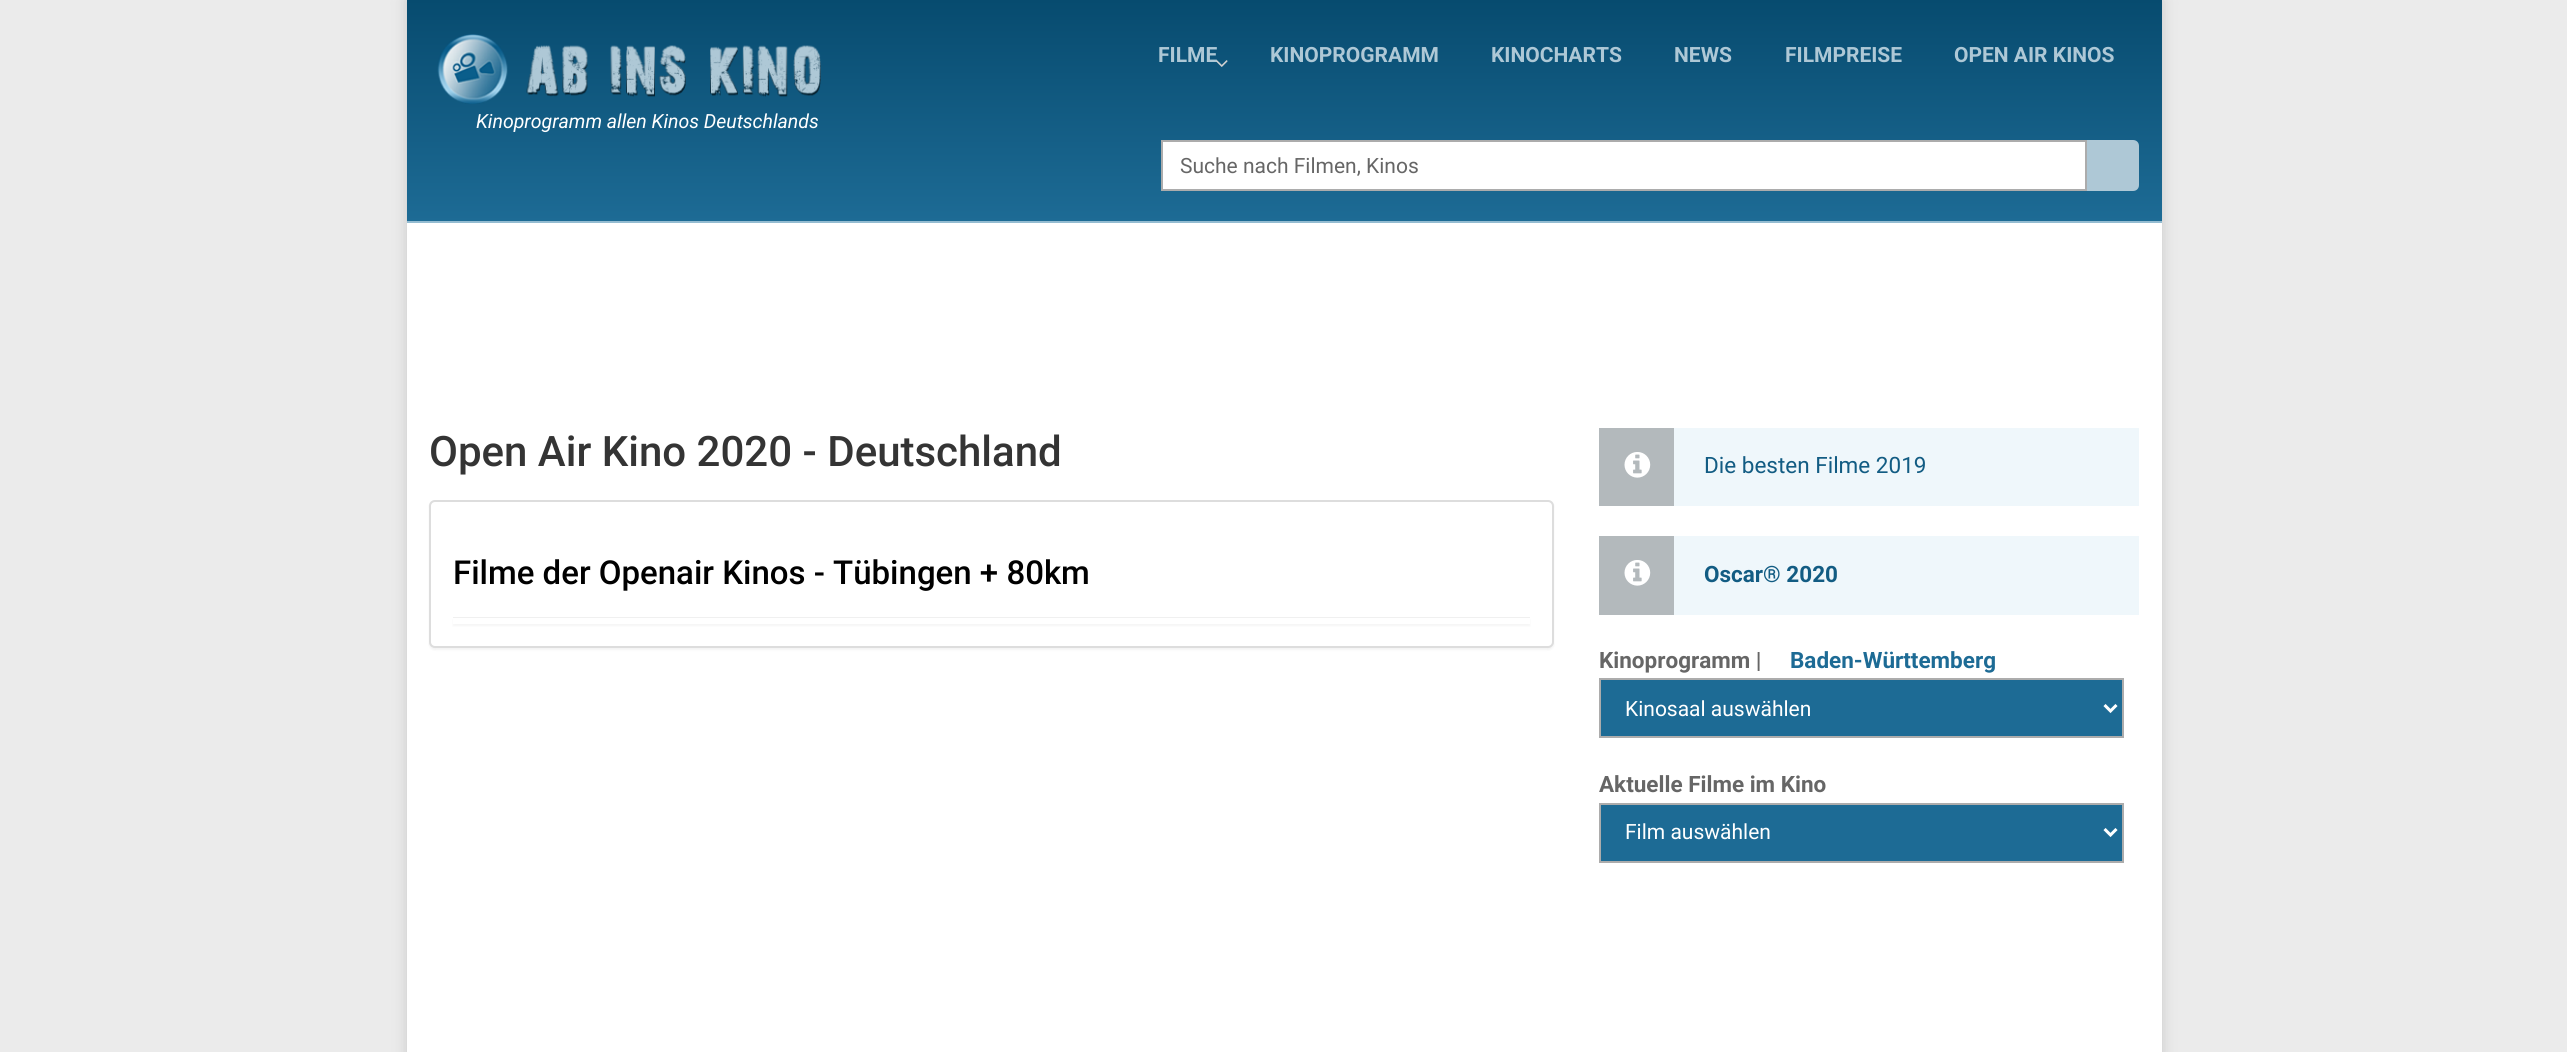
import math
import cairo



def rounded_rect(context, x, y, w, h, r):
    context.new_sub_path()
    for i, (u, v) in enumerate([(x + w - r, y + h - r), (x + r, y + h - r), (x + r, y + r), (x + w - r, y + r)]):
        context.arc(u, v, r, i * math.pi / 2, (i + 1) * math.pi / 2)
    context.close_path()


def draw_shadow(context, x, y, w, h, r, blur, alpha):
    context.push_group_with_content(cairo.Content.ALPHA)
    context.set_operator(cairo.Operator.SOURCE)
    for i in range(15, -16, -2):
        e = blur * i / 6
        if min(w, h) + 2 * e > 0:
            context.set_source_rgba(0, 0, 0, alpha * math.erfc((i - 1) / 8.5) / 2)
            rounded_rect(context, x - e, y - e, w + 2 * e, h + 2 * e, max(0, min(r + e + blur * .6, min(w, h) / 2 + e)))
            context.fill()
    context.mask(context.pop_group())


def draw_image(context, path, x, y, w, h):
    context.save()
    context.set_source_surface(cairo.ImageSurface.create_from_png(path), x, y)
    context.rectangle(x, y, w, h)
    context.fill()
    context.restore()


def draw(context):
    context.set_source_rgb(235 / 255, 235 / 255, 235 / 255)
    context.paint()
    context.set_source_rgb(202 / 255, 202 / 255, 202 / 255)
    draw_shadow(context, 407, 0, 1755, 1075, 0, 7.5, 1)
    context.set_source_rgb(1, 1, 1)
    context.rectangle(407, 223, 1755, 829)
    context.fill()
    gradient = cairo.LinearGradient(1284, 0, 1284, 221)
    gradient.add_color_stop_rgba(0, 7 / 255, 75 / 255, 111 / 255, 1)
    gradient.add_color_stop_rgba(1, 29 / 255, 107 / 255, 149 / 255, 1)
    context.set_source(gradient)
    context.rectangle(407, 0, 1755, 221)
    context.fill()
    context.set_source_rgb(148 / 255, 188 / 255, 209 / 255)
    context.rectangle(407, 221, 1755, 2)
    context.fill()
    draw_image(context, "images/2.png", 437, 34, 384, 70)
    context.set_source_rgb(1, 1, 1)
    context.rectangle(1162, 141, 924, 49)
    context.fill_preserve()
    context.set_source_rgb(172 / 255, 172 / 255, 172 / 255)
    context.stroke()
    context.set_source_rgb(174 / 255, 200 / 255, 214 / 255)
    context.new_path()
    context.move_to(2087, 140)
    context.line_to(2133, 140)
    context.curve_to(2136.5, 140, 2139, 142.5, 2139, 146)
    context.line_to(2139, 185)
    context.curve_to(2139, 188.5, 2136.5, 191, 2133, 191)
    context.line_to(2087, 191)
    context.close_path()
    context.fill()
    context.set_source_rgb(0, 0, 0)
    draw_shadow(context, 429, 501, 1125, 149, 6, 1, 0.05)
    context.set_source_rgb(1, 1, 1)
    rounded_rect(context, 430, 501, 1123, 146, 5)
    context.fill_preserve()
    context.set_source_rgb(221 / 255, 221 / 255, 221 / 255)
    context.stroke()
    context.set_source_rgb(240 / 255, 240 / 255, 240 / 255)
    context.rectangle(453, 617, 1077, 1)
    context.fill()
    context.set_source_rgb(0, 0, 0)
    draw_shadow(context, 453, 620, 1077, 6, 0, 1, 0.04)
    context.set_source_rgb(1, 1, 1)
    context.rectangle(453, 619, 1077, 5)
    context.fill()
    context.set_source_rgb(239 / 255, 247 / 255, 251 / 255)
    context.rectangle(1674, 428, 465, 78)
    context.fill()
    context.set_source_rgb(179 / 255, 185 / 255, 188 / 255)
    context.rectangle(1599, 428, 75, 78)
    context.fill()
    draw_image(context, "images/3.png", 1624, 452, 27, 26)
    context.set_source_rgb(239 / 255, 247 / 255, 251 / 255)
    context.rectangle(1674, 536, 465, 79)
    context.fill()
    context.set_source_rgb(179 / 255, 185 / 255, 188 / 255)
    context.rectangle(1599, 536, 75, 79)
    context.fill()
    draw_image(context, "images/3.png", 1624, 560, 27, 26)
    context.set_source_rgb(29 / 255, 107 / 255, 149 / 255)
    context.rectangle(1600, 679, 523, 58)
    context.fill_preserve()
    context.set_source_rgb(172 / 255, 172 / 255, 172 / 255)
    context.stroke()
    context.new_path()
    context.move_to(2104.5, 705)
    context.line_to(2110.5, 711)
    context.line_to(2116.5, 705)
    context.set_source_rgb(1, 1, 1)
    context.set_line_width(3)
    context.stroke()
    context.set_source_rgb(29 / 255, 107 / 255, 149 / 255)
    context.rectangle(1600, 804, 523, 58)
    context.fill_preserve()
    context.set_source_rgb(172 / 255, 172 / 255, 172 / 255)
    context.set_line_width(2)
    context.stroke()
    context.new_path()
    context.move_to(2104.5, 829)
    context.line_to(2110.5, 835)
    context.line_to(2116.5, 829)
    context.set_source_rgb(1, 1, 1)
    context.set_line_width(3)
    context.stroke()
    context.select_font_face("Roboto", cairo.FontSlant.NORMAL, cairo.FontWeight.BOLD)
    context.set_font_size(21)
    context.set_source_rgb(174 / 255, 200 / 255, 214 / 255)
    context.move_to(1158, 62)
    context.show_text("FILME")
    draw_image(context, "images/1.png", 1216, 60, 12, 7)
    context.move_to(1270, 62)
    context.show_text("KINOPROGRAMM")
    context.move_to(1491, 62)
    context.show_text("KINOCHARTS")
    context.move_to(1674, 62)
    context.show_text("NEWS")
    context.move_to(1785, 62)
    context.show_text("FILMPREISE")
    context.move_to(1954, 62)
    context.show_text("OPEN AIR KINOS")
    context.select_font_face("Roboto", cairo.FontSlant.ITALIC)
    context.set_font_size(19.5)
    context.set_source_rgb(1, 1, 1)
    context.move_to(476, 128)
    context.show_text("Kinoprogramm allen Kinos Deutschlands")
    context.select_font_face("Roboto")
    context.set_font_size(21)
    context.set_source_rgb(102 / 255, 102 / 255, 102 / 255)
    context.move_to(1180, 173)
    context.show_text("Suche nach Filmen, Kinos")
    context.select_font_face("Roboto Medium")
    context.set_font_size(42)
    context.set_source_rgb(52 / 255, 52 / 255, 52 / 255)
    context.move_to(429, 466)
    context.show_text("Open Air Kino 2020 - Deutschland")
    context.set_font_size(33)
    context.set_source_rgb(0, 0, 0)
    context.move_to(453, 584)
    context.show_text("Filme der Openair Kinos - Tübingen + 80km")
    context.select_font_face("Roboto")
    context.set_font_size(22.5)
    context.set_source_rgb(18 / 255, 92 / 255, 131 / 255)
    context.move_to(1704, 473)
    context.show_text("Die besten Filme 2019")
    context.select_font_face("Roboto", cairo.FontSlant.NORMAL, cairo.FontWeight.BOLD)
    context.move_to(1704, 582)
    context.show_text("Oscar® 2020")
    context.set_source_rgb(102 / 255, 102 / 255, 102 / 255)
    context.move_to(1599, 668)
    context.show_text("Kinoprogramm |")
    context.set_source_rgb(29 / 255, 107 / 255, 149 / 255)
    context.move_to(1790, 668)
    context.show_text("Baden-Württemberg")
    context.select_font_face("Roboto")
    context.set_font_size(21)
    context.set_source_rgb(1, 1, 1)
    context.move_to(1625, 716)
    context.show_text("Kinosaal auswählen")
    context.select_font_face("Roboto", cairo.FontSlant.NORMAL, cairo.FontWeight.BOLD)
    context.set_font_size(22.5)
    context.set_source_rgb(102 / 255, 102 / 255, 102 / 255)
    context.move_to(1599, 792)
    context.show_text("Aktuelle Filme im Kino")
    context.select_font_face("Roboto")
    context.set_font_size(21)
    context.set_source_rgb(1, 1, 1)
    context.move_to(1625, 839)
    context.show_text("Film auswählen")


surface = cairo.ImageSurface(cairo.Format.RGB24, 2567, 1052)
context = cairo.Context(surface)
options = cairo.FontOptions()
options.set_hint_metrics(cairo.HintMetrics.OFF)
options.set_hint_style(cairo.HintStyle.NONE)
context.set_font_options(options)
context.set_miter_limit(4)
draw(context)
surface.write_to_png("out.png")
